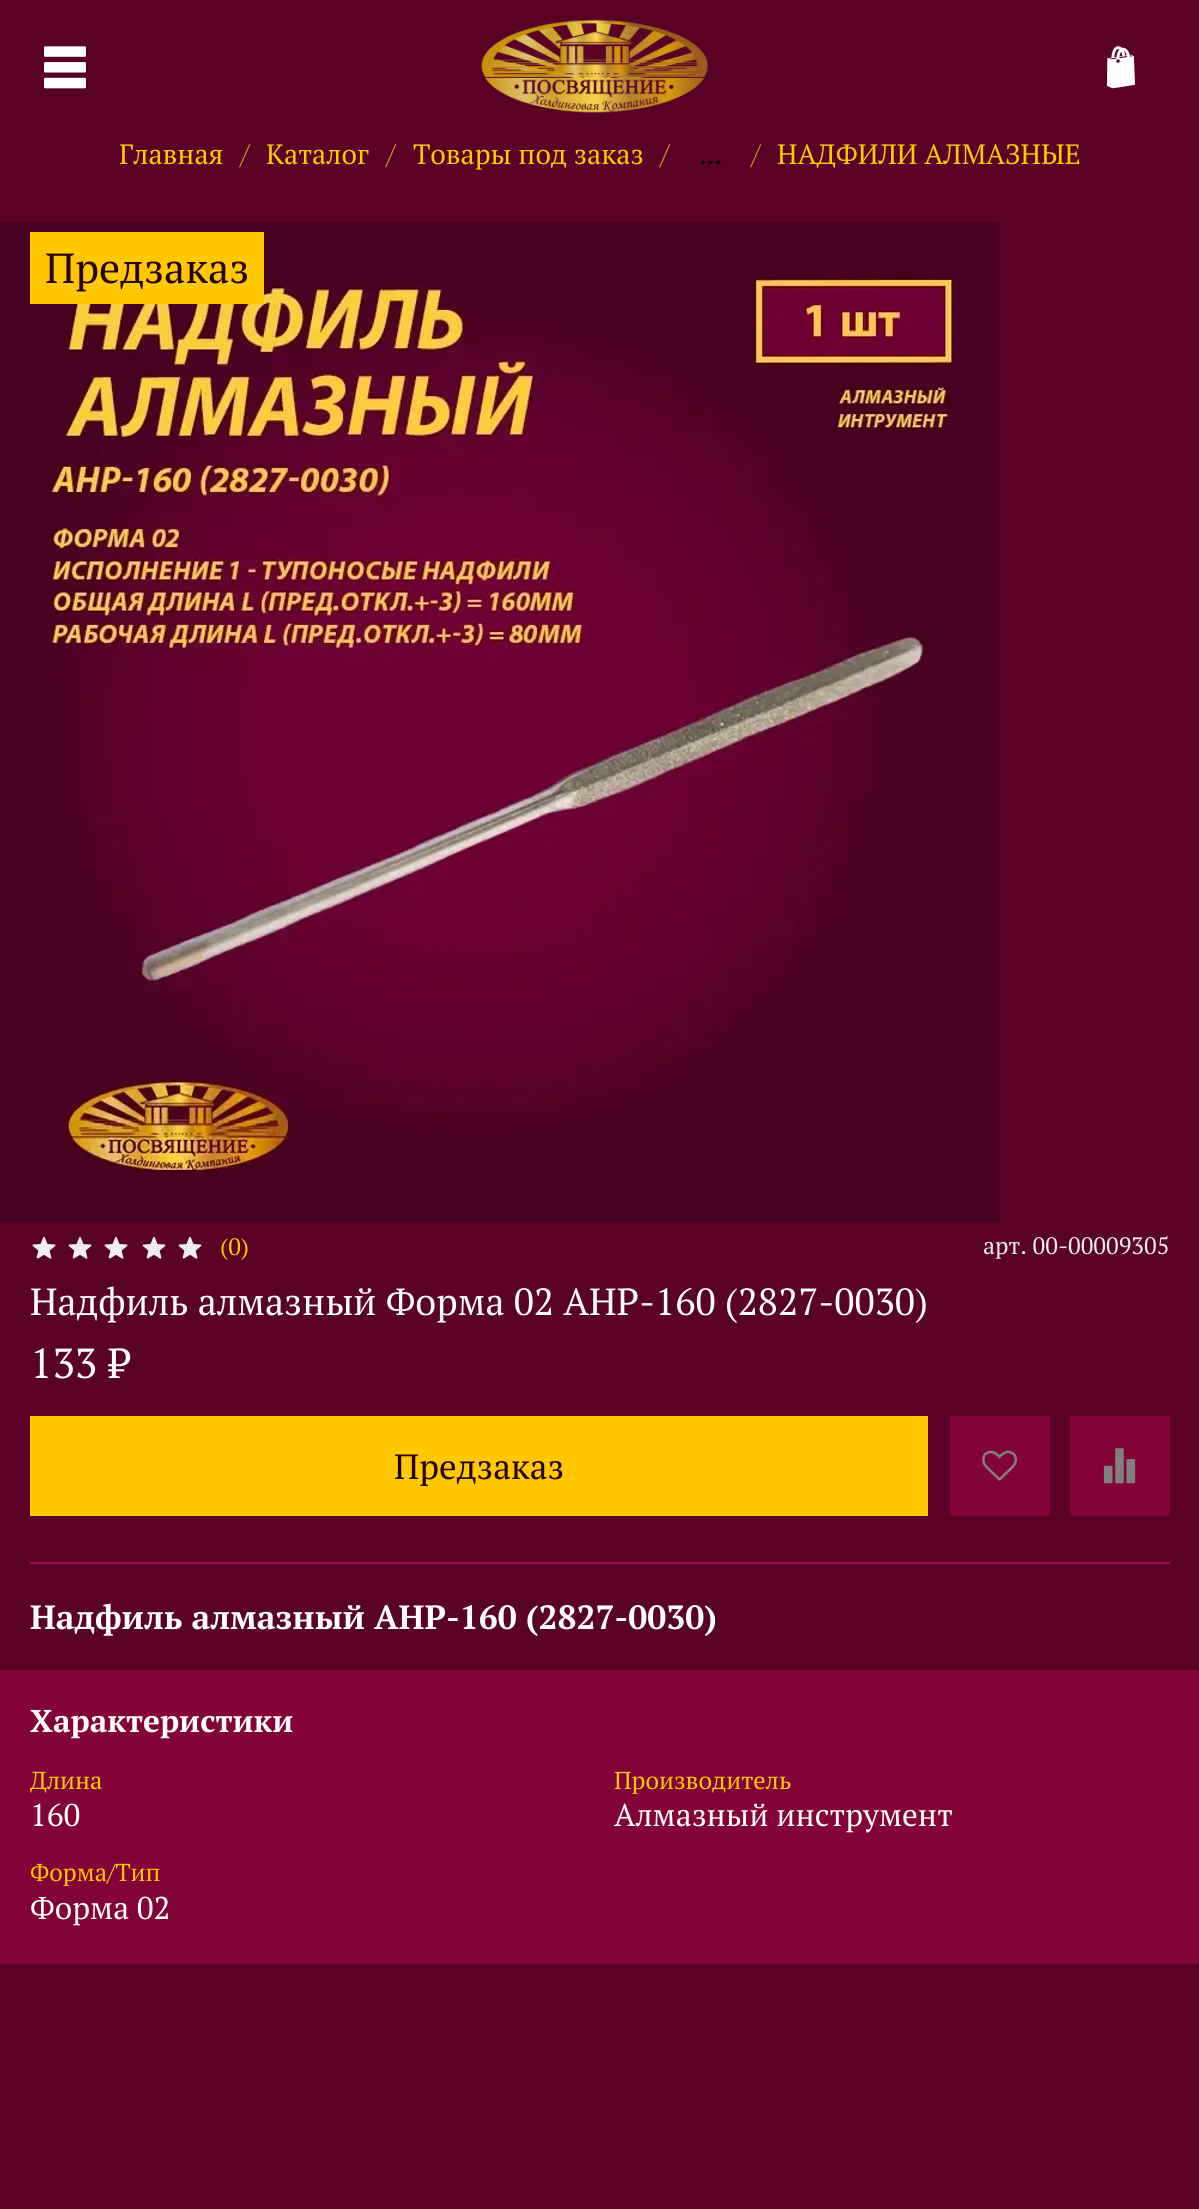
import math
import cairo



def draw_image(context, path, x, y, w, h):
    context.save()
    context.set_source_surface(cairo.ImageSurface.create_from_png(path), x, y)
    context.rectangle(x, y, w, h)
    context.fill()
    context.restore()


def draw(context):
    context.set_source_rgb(89 / 255, 2 / 255, 38 / 255)
    context.paint()
    draw_image(context, "images/1.png", 44, 46, 42, 43)
    draw_image(context, "images/2.png", 481, 19, 228, 94)
    draw_image(context, "images/3.png", 1107, 46, 28, 43)
    draw_image(context, "images/4.png", 0, 222, 1000, 1000)
    context.set_source_rgb(1, 200 / 255, 0)
    context.rectangle(30, 232, 234, 72)
    context.fill()
    draw_image(context, "images/5.png", 32, 1236, 24, 23)
    draw_image(context, "images/5.png", 68, 1236, 24, 23)
    draw_image(context, "images/5.png", 104, 1236, 24, 23)
    draw_image(context, "images/5.png", 142, 1236, 24, 23)
    draw_image(context, "images/5.png", 178, 1236, 24, 23)
    context.rectangle(30, 1416, 898, 100)
    context.fill()
    context.set_source_rgb(131 / 255, 3 / 255, 56 / 255)
    context.rectangle(950, 1416, 100, 100)
    context.fill()
    draw_image(context, "images/6.png", 982, 1450, 35, 31)
    context.rectangle(1070, 1416, 100, 100)
    context.fill()
    draw_image(context, "images/7.png", 1103, 1448, 33, 36)
    context.set_source_rgb(172 / 255, 4 / 255, 74 / 255)
    context.rectangle(30, 1562, 1140, 2)
    context.fill()
    context.set_source_rgb(131 / 255, 3 / 255, 56 / 255)
    context.rectangle(0, 1670, 1199, 294)
    context.fill()
    context.select_font_face("PT Serif")
    context.set_font_size(28)
    context.set_source_rgb(1, 200 / 255, 0)
    context.move_to(119, 164)
    context.show_text("Главная")
    context.set_source_rgb(205 / 255, 141 / 255, 11 / 255)
    context.move_to(240, 164)
    context.show_text("/")
    context.set_source_rgb(1, 200 / 255, 0)
    context.move_to(266, 164)
    context.show_text("Каталог")
    context.set_source_rgb(205 / 255, 141 / 255, 11 / 255)
    context.move_to(386, 164)
    context.show_text("/")
    context.set_source_rgb(1, 200 / 255, 0)
    context.move_to(413, 164)
    context.show_text("Товары под заказ")
    context.set_source_rgb(205 / 255, 141 / 255, 11 / 255)
    context.move_to(660, 164)
    context.show_text("/")
    context.set_source_rgb(0, 0, 0)
    context.move_to(699, 164)
    context.show_text("...")
    context.set_source_rgb(205 / 255, 141 / 255, 11 / 255)
    context.move_to(751, 164)
    context.show_text("/")
    context.set_source_rgb(1, 200 / 255, 0)
    context.move_to(777, 164)
    context.show_text("НАДФИЛИ АЛМАЗНЫЕ")
    context.set_font_size(42)
    context.set_source_rgb(36 / 255, 1 / 255, 11 / 255)
    context.move_to(45, 283)
    context.show_text("Предзаказ")
    context.set_font_size(23.75)
    context.set_source_rgb(1, 200 / 255, 0)
    context.move_to(220, 1255)
    context.show_text("(0)")
    context.set_source_rgb(237 / 255, 237 / 255, 237 / 255)
    context.move_to(983, 1254)
    context.show_text("арт. 00-00009305")
    context.set_font_size(37.8)
    context.set_source_rgb(1, 1, 1)
    context.move_to(30, 1315)
    context.show_text("Надфиль алмазный Форма 02 АНР-160 (2827-0030)")
    context.set_font_size(42)
    context.move_to(30, 1378)
    context.show_text("133 ₽")
    context.set_font_size(35)
    context.set_source_rgb(36 / 255, 1 / 255, 11 / 255)
    context.move_to(394, 1479)
    context.show_text("Предзаказ")
    context.select_font_face("PT Serif", cairo.FontSlant.NORMAL, cairo.FontWeight.BOLD)
    context.set_font_size(33.6)
    context.set_source_rgb(1, 1, 1)
    context.move_to(30, 1629)
    context.show_text("Надфиль алмазный АНР-160 (2827-0030)")
    context.set_font_size(31.5)
    context.move_to(30, 1732)
    context.show_text("Характеристики")
    context.select_font_face("PT Serif")
    context.set_font_size(24.5)
    context.set_source_rgb(1, 200 / 255, 0)
    context.move_to(30, 1789)
    context.show_text("Длина")
    context.set_font_size(31.5)
    context.set_source_rgb(1, 1, 1)
    context.move_to(30, 1826)
    context.show_text("160")
    context.set_font_size(24.5)
    context.set_source_rgb(1, 200 / 255, 0)
    context.move_to(614, 1789)
    context.show_text("Производитель")
    context.set_font_size(31.5)
    context.set_source_rgb(1, 1, 1)
    context.move_to(614, 1826)
    context.show_text("Алмазный инструмент")
    context.set_font_size(24.5)
    context.set_source_rgb(1, 200 / 255, 0)
    context.move_to(30, 1881)
    context.show_text("Форма/Тип")
    context.set_font_size(31.5)
    context.set_source_rgb(1, 1, 1)
    context.move_to(30, 1919)
    context.show_text("Форма 02")


surface = cairo.ImageSurface(cairo.Format.RGB24, 1199, 2209)
context = cairo.Context(surface)
options = cairo.FontOptions()
options.set_hint_metrics(cairo.HintMetrics.OFF)
options.set_hint_style(cairo.HintStyle.NONE)
context.set_font_options(options)
context.set_miter_limit(4)
draw(context)
surface.write_to_png("out.png")
